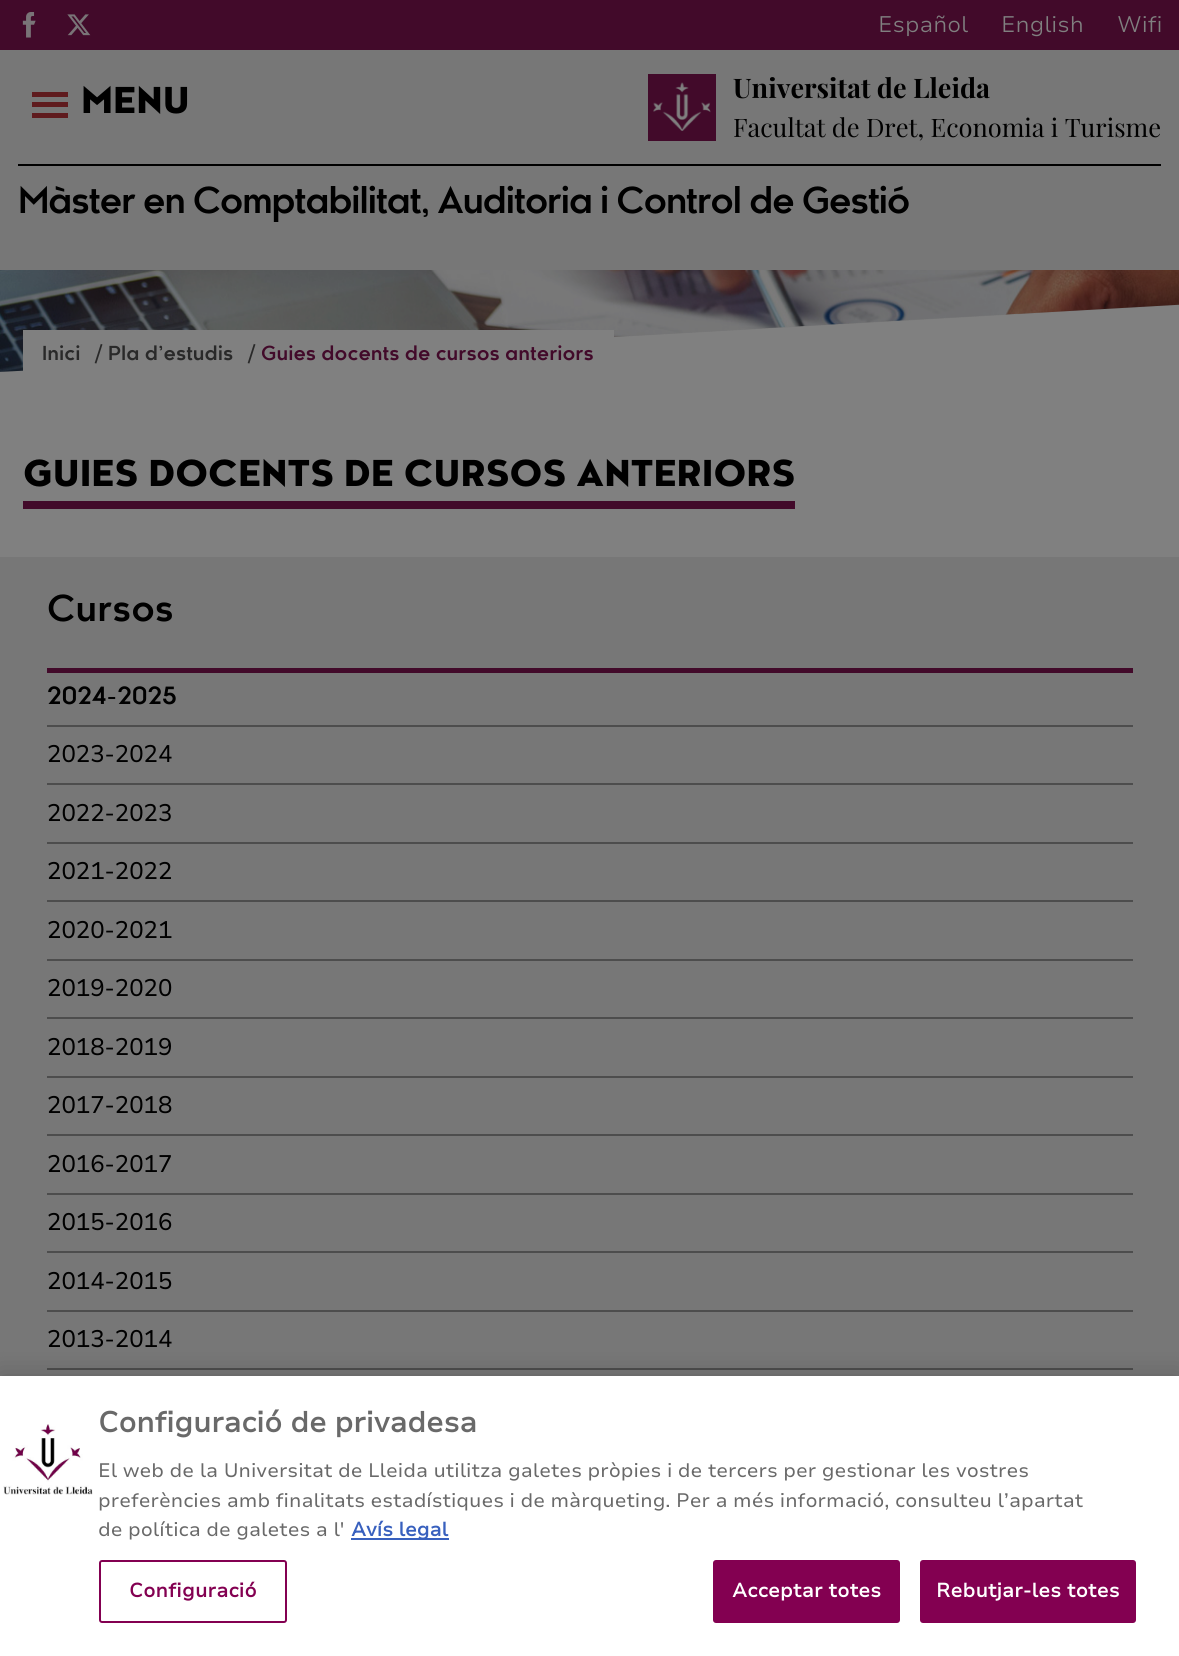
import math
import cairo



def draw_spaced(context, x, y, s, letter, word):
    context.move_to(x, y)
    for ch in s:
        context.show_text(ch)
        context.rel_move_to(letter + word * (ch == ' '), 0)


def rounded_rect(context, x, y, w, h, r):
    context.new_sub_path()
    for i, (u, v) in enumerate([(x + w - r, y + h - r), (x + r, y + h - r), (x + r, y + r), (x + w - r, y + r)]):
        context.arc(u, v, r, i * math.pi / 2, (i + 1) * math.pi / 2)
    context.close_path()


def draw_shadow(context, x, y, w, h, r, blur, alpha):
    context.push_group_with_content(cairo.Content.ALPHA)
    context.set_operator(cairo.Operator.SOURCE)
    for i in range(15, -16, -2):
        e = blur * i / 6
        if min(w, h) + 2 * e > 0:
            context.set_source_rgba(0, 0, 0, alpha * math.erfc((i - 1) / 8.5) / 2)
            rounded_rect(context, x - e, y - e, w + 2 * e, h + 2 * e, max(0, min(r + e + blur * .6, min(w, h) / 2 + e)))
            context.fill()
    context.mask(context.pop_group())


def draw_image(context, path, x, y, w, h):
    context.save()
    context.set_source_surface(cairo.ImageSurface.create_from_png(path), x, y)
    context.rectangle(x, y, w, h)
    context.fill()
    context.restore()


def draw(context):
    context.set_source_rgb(128 / 255, 128 / 255, 128 / 255)
    context.paint()
    context.set_source_rgb(66 / 255, 10 / 255, 42 / 255)
    context.rectangle(0, 0, 1179, 50)
    context.fill()
    draw_image(context, "images/1.png", 22, 12, 14, 26)
    draw_image(context, "images/2.png", 67, 14, 24, 22)
    context.set_source_rgb(119 / 255, 119 / 255, 119 / 255)
    context.rectangle(0, 50, 1179, 220)
    context.fill()
    context.set_source_rgb(66 / 255, 10 / 255, 42 / 255)
    context.rectangle(648, 74, 68, 67)
    context.fill()
    draw_image(context, "images/3.png", 653, 82, 58, 49)
    context.set_source_rgb(0, 0, 0)
    context.rectangle(18, 164, 1143, 2)
    context.fill()
    context.set_source_rgb(95 / 255, 27 / 255, 30 / 255)
    context.rectangle(32, 92, 36, 5)
    context.fill()
    context.rectangle(32, 102, 36, 5)
    context.fill()
    context.rectangle(32, 113, 36, 5)
    context.fill()
    context.set_source_rgb(119 / 255, 119 / 255, 119 / 255)
    context.new_path()
    context.move_to(0, 270)
    context.line_to(0, 372)
    context.line_to(1179, 305)
    context.line_to(1179, 270)
    context.close_path()
    context.fill()
    draw_image(context, "images/4.png", 0, 270, 1179, 102)
    context.set_source_rgb(128 / 255, 128 / 255, 128 / 255)
    context.rectangle(23, 330, 591, 41)
    context.fill()
    context.set_source_rgb(66 / 255, 10 / 255, 42 / 255)
    context.rectangle(23, 501, 772, 8)
    context.fill()
    context.set_source_rgb(119 / 255, 119 / 255, 119 / 255)
    context.rectangle(0, 557, 1179, 819)
    context.fill()
    context.set_source_rgb(66 / 255, 10 / 255, 42 / 255)
    context.rectangle(47, 668, 1086, 5)
    context.fill()
    context.set_source_rgb(77 / 255, 77 / 255, 77 / 255)
    context.rectangle(47, 725, 1086, 2)
    context.fill()
    context.rectangle(47, 783, 1086, 2)
    context.fill()
    context.rectangle(47, 842, 1086, 2)
    context.fill()
    context.rectangle(47, 900, 1086, 2)
    context.fill()
    context.rectangle(47, 959, 1086, 2)
    context.fill()
    context.rectangle(47, 1017, 1086, 2)
    context.fill()
    context.rectangle(47, 1076, 1086, 2)
    context.fill()
    context.rectangle(47, 1134, 1086, 2)
    context.fill()
    context.rectangle(47, 1193, 1086, 2)
    context.fill()
    context.rectangle(47, 1251, 1086, 2)
    context.fill()
    context.rectangle(47, 1310, 1086, 2)
    context.fill()
    context.rectangle(47, 1368, 1086, 2)
    context.fill()
    context.set_source_rgb(0, 0, 0)
    draw_shadow(context, 0, 1376, 1179, 280, 0, 13.5, 0.2)
    context.set_source_rgb(1, 1, 1)
    context.rectangle(0, 1376, 1179, 280)
    context.fill()
    draw_image(context, "images/5.png", 3, 1424, 90, 71)
    context.set_source_rgb(56 / 255, 96 / 255, 190 / 255)
    context.rectangle(351, 1538, 98, 2)
    context.fill()
    rounded_rect(context, 100, 1561, 186, 61, 2)
    context.set_source_rgb(131 / 255, 0, 81 / 255)
    context.stroke()
    rounded_rect(context, 714, 1561, 185, 61, 2)
    context.fill_preserve()
    context.stroke()
    rounded_rect(context, 921, 1561, 214, 61, 2)
    context.fill_preserve()
    context.stroke()
    context.select_font_face("Nunito Sans Light")
    context.set_font_size(22.5)
    context.set_source_rgb(128 / 255, 128 / 255, 128 / 255)
    context.move_to(878, 32)
    context.show_text("Español")
    context.move_to(1001, 32)
    context.show_text("English")
    context.move_to(1117, 32)
    context.show_text("Wifi")
    context.select_font_face("Playfair Display", cairo.FontSlant.NORMAL, cairo.FontWeight.BOLD)
    context.set_font_size(27)
    context.set_source_rgb(0, 0, 0)
    context.move_to(733, 98)
    context.show_text("Universitat de Lleida")
    context.select_font_face("Playfair Display")
    context.set_font_size(25.5)
    context.move_to(733, 137)
    context.show_text("Facultat de Dret, Economia i Turisme")
    context.select_font_face("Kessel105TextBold", cairo.FontSlant.NORMAL, cairo.FontWeight.BOLD)
    context.set_font_size(36)
    draw_spaced(context, 18, 213, "Màster en Comptabilitat, Auditoria i Control de Gestió", -1.45, 0)
    context.select_font_face("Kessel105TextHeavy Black")
    context.move_to(81, 113)
    context.show_text("MENU")
    context.select_font_face("Kessel105TextBold", cairo.FontSlant.NORMAL, cairo.FontWeight.BOLD)
    context.set_font_size(19.5)
    context.set_source_rgb(41 / 255, 41 / 255, 41 / 255)
    context.move_to(42, 360)
    context.show_text("Inici")
    context.select_font_face("Nunito Sans")
    context.set_font_size(24)
    context.move_to(95, 362)
    context.show_text("/")
    context.select_font_face("Kessel105TextBold", cairo.FontSlant.NORMAL, cairo.FontWeight.BOLD)
    context.set_font_size(19.5)
    context.move_to(108, 360)
    context.show_text("Pla d’estudis")
    context.select_font_face("Nunito Sans")
    context.set_font_size(24)
    context.move_to(248, 362)
    context.show_text("/")
    context.select_font_face("Kessel105TextBold", cairo.FontSlant.NORMAL, cairo.FontWeight.BOLD)
    context.set_font_size(19.5)
    context.set_source_rgb(66 / 255, 10 / 255, 42 / 255)
    context.move_to(261, 360)
    context.show_text("Guies docents de cursos anteriors")
    context.select_font_face("Kessel105TextHeavy Black")
    context.set_font_size(36)
    context.set_source_rgb(0, 0, 0)
    context.move_to(23, 486)
    context.show_text("GUIES DOCENTS DE CURSOS ANTERIORS")
    context.select_font_face("Kessel105TextBold", cairo.FontSlant.NORMAL, cairo.FontWeight.BOLD)
    context.move_to(47, 621)
    context.show_text("Cursos")
    context.set_font_size(24)
    context.move_to(47, 704)
    context.show_text("2024-2025")
    context.select_font_face("Nunito Sans")
    context.move_to(47, 762)
    context.show_text("2023-2024")
    context.move_to(47, 821)
    context.show_text("2022-2023")
    context.move_to(47, 879)
    context.show_text("2021-2022")
    context.move_to(47, 938)
    context.show_text("2020-2021")
    context.move_to(47, 996)
    context.show_text("2019-2020")
    context.move_to(47, 1055)
    context.show_text("2018-2019")
    context.move_to(47, 1113)
    context.show_text("2017-2018")
    context.move_to(47, 1172)
    context.show_text("2016-2017")
    context.move_to(47, 1230)
    context.show_text("2015-2016")
    context.move_to(47, 1289)
    context.show_text("2014-2015")
    context.move_to(47, 1347)
    context.show_text("2013-2014")
    context.select_font_face("Nunito Sans", cairo.FontSlant.NORMAL, cairo.FontWeight.BOLD)
    context.set_font_size(28.75)
    context.set_source_rgb(105 / 255, 105 / 255, 105 / 255)
    context.move_to(98, 1432)
    context.show_text("Configuració de privadesa")
    context.select_font_face("Nunito Sans")
    context.set_font_size(19.5)
    context.move_to(98, 1477)
    context.show_text("El web de la Universitat de Lleida utilitza galetes pròpies i de tercers per gestionar les vostres")
    context.move_to(98, 1507)
    context.show_text("preferències amb finalitats estadístiques i de màrqueting. Per a més informació, consulteu l’apartat")
    context.move_to(98, 1536)
    context.show_text("de política de galetes a l'")
    context.select_font_face("Nunito Sans", cairo.FontSlant.NORMAL, cairo.FontWeight.BOLD)
    context.set_source_rgb(56 / 255, 96 / 255, 190 / 255)
    context.move_to(351, 1536)
    context.show_text("Avís legal")
    context.set_source_rgb(131 / 255, 0, 81 / 255)
    draw_spaced(context, 129, 1597, "Configuració", 0.25, 0)
    context.set_source_rgb(1, 1, 1)
    draw_spaced(context, 732, 1597, "Acceptar totes", 0.25, 0)
    draw_spaced(context, 936, 1597, "Rebutjar-les totes", 0.25, 0)


surface = cairo.ImageSurface(cairo.Format.RGB24, 1179, 1656)
context = cairo.Context(surface)
options = cairo.FontOptions()
options.set_hint_metrics(cairo.HintMetrics.OFF)
options.set_hint_style(cairo.HintStyle.NONE)
context.set_font_options(options)
context.set_miter_limit(4)
draw(context)
surface.write_to_png("out.png")
